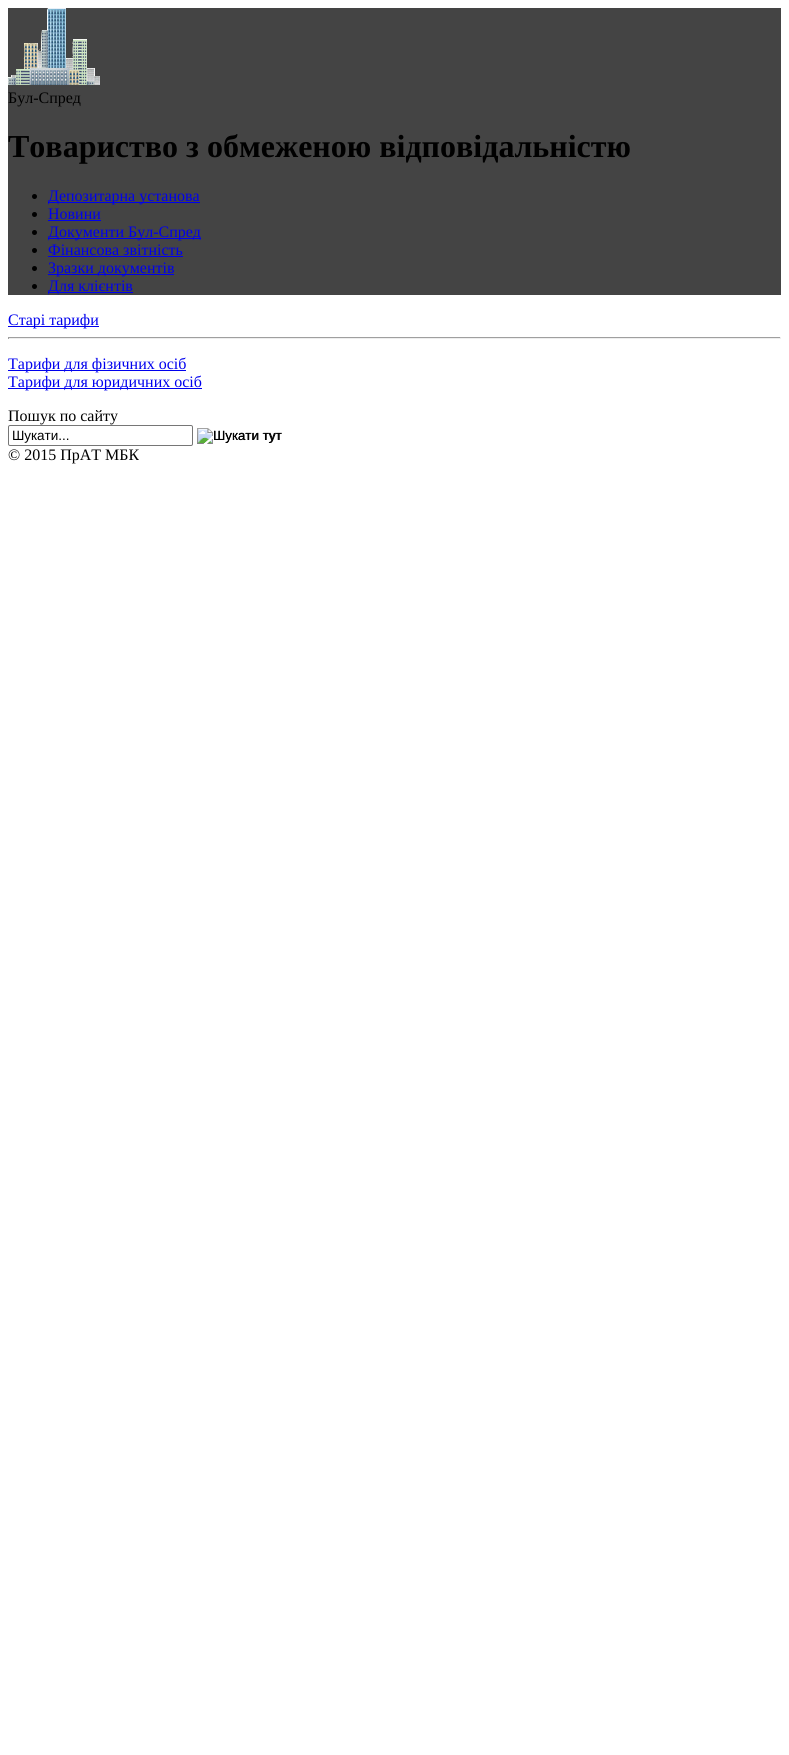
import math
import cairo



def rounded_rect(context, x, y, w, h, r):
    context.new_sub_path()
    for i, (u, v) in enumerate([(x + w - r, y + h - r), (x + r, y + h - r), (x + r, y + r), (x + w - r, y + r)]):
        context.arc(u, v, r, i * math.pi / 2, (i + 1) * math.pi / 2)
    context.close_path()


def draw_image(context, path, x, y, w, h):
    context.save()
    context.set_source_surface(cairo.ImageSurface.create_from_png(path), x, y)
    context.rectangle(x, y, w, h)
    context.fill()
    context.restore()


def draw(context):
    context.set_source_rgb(1, 1, 1)
    context.paint()
    context.set_source_rgb(68 / 255, 68 / 255, 68 / 255)
    context.rectangle(8, 8, 773, 287)
    context.fill()
    draw_image(context, "images/1.png", 8, 8, 92, 77)
    context.set_source_rgb(0, 0, 0)
    context.arc(34.5, 196.5, 2.5, 0, 2 * math.pi)
    context.fill()
    context.set_source_rgb(0, 0, 238 / 255)
    context.rectangle(48, 202, 152, 1)
    context.fill()
    context.set_source_rgb(0, 0, 0)
    context.arc(34.5, 214.5, 2.5, 0, 2 * math.pi)
    context.fill()
    context.set_source_rgb(0, 0, 238 / 255)
    context.rectangle(48, 220, 53, 1)
    context.fill()
    context.set_source_rgb(0, 0, 0)
    context.arc(34.5, 232.5, 2.5, 0, 2 * math.pi)
    context.fill()
    context.set_source_rgb(0, 0, 238 / 255)
    context.rectangle(48, 238, 153, 1)
    context.fill()
    context.set_source_rgb(0, 0, 0)
    context.arc(34.5, 250.5, 2.5, 0, 2 * math.pi)
    context.fill()
    context.set_source_rgb(0, 0, 238 / 255)
    context.rectangle(48, 256, 135, 1)
    context.fill()
    context.set_source_rgb(0, 0, 0)
    context.arc(34.5, 268.5, 2.5, 0, 2 * math.pi)
    context.fill()
    context.set_source_rgb(0, 0, 238 / 255)
    context.rectangle(48, 274, 126, 1)
    context.fill()
    context.set_source_rgb(0, 0, 0)
    context.arc(34.5, 286.5, 2.5, 0, 2 * math.pi)
    context.fill()
    context.set_source_rgb(0, 0, 238 / 255)
    context.rectangle(48, 292, 85, 1)
    context.fill()
    context.rectangle(8, 326, 91, 1)
    context.fill()
    context.set_source_rgb(159 / 255, 159 / 255, 159 / 255)
    context.rectangle(8, 337, 773, 1)
    context.fill()
    context.set_source_rgb(238 / 255, 238 / 255, 238 / 255)
    context.rectangle(780, 337, 1, 2)
    context.fill()
    context.rectangle(8, 338, 773, 1)
    context.fill()
    context.set_source_rgb(159 / 255, 159 / 255, 159 / 255)
    context.rectangle(8, 337, 1, 2)
    context.fill()
    context.set_source_rgb(0, 0, 238 / 255)
    context.rectangle(8, 370, 178, 1)
    context.fill()
    context.rectangle(8, 388, 194, 1)
    context.fill()
    rounded_rect(context, 8.5, 425.5, 184, 20, 1.5)
    context.set_source_rgb(118 / 255, 118 / 255, 118 / 255)
    context.set_line_width(1)
    context.stroke()
    draw_image(context, "images/2.png", 197, 428, 84, 16)
    context.select_font_face("Liberation Serif")
    context.set_font_size(16)
    context.set_source_rgb(0, 0, 0)
    context.move_to(8, 103)
    context.show_text("Бул-Спред")
    context.select_font_face("Liberation Serif", cairo.FontSlant.NORMAL, cairo.FontWeight.BOLD)
    context.set_font_size(32)
    context.move_to(8, 157)
    context.show_text("Товариство з обмеженою відповідальністю")
    context.select_font_face("Liberation Serif")
    context.set_font_size(16)
    context.set_source_rgb(0, 0, 238 / 255)
    context.move_to(48, 201)
    context.show_text("Депозитарна установа")
    context.move_to(48, 219)
    context.show_text("Новини")
    context.move_to(48, 237)
    context.show_text("Документи Бул-Спред")
    context.move_to(48, 255)
    context.show_text("Фінансова звітність")
    context.move_to(48, 273)
    context.show_text("Зразки документів")
    context.move_to(48, 291)
    context.show_text("Для клієнтів")
    context.move_to(8, 325)
    context.show_text("Старі тарифи")
    context.move_to(8, 369)
    context.show_text("Тарифи для фізичних осіб")
    context.move_to(8, 387)
    context.show_text("Тарифи для юридичних осіб")
    context.set_source_rgb(0, 0, 0)
    context.move_to(8, 421)
    context.show_text("Пошук по сайту")
    context.select_font_face("Liberation Sans")
    context.set_font_size(13.5)
    context.move_to(12, 440)
    context.show_text("Шукати...")
    context.move_to(213, 440)
    context.show_text("Шукати тут")
    context.select_font_face("Liberation Serif")
    context.set_font_size(16)
    context.move_to(8, 460)
    context.show_text("© 2015 ПрАТ МБК")


surface = cairo.ImageSurface(cairo.Format.RGB24, 789, 1755)
context = cairo.Context(surface)
options = cairo.FontOptions()
options.set_hint_metrics(cairo.HintMetrics.OFF)
options.set_hint_style(cairo.HintStyle.NONE)
context.set_font_options(options)
context.set_miter_limit(4)
draw(context)
surface.write_to_png("out.png")
